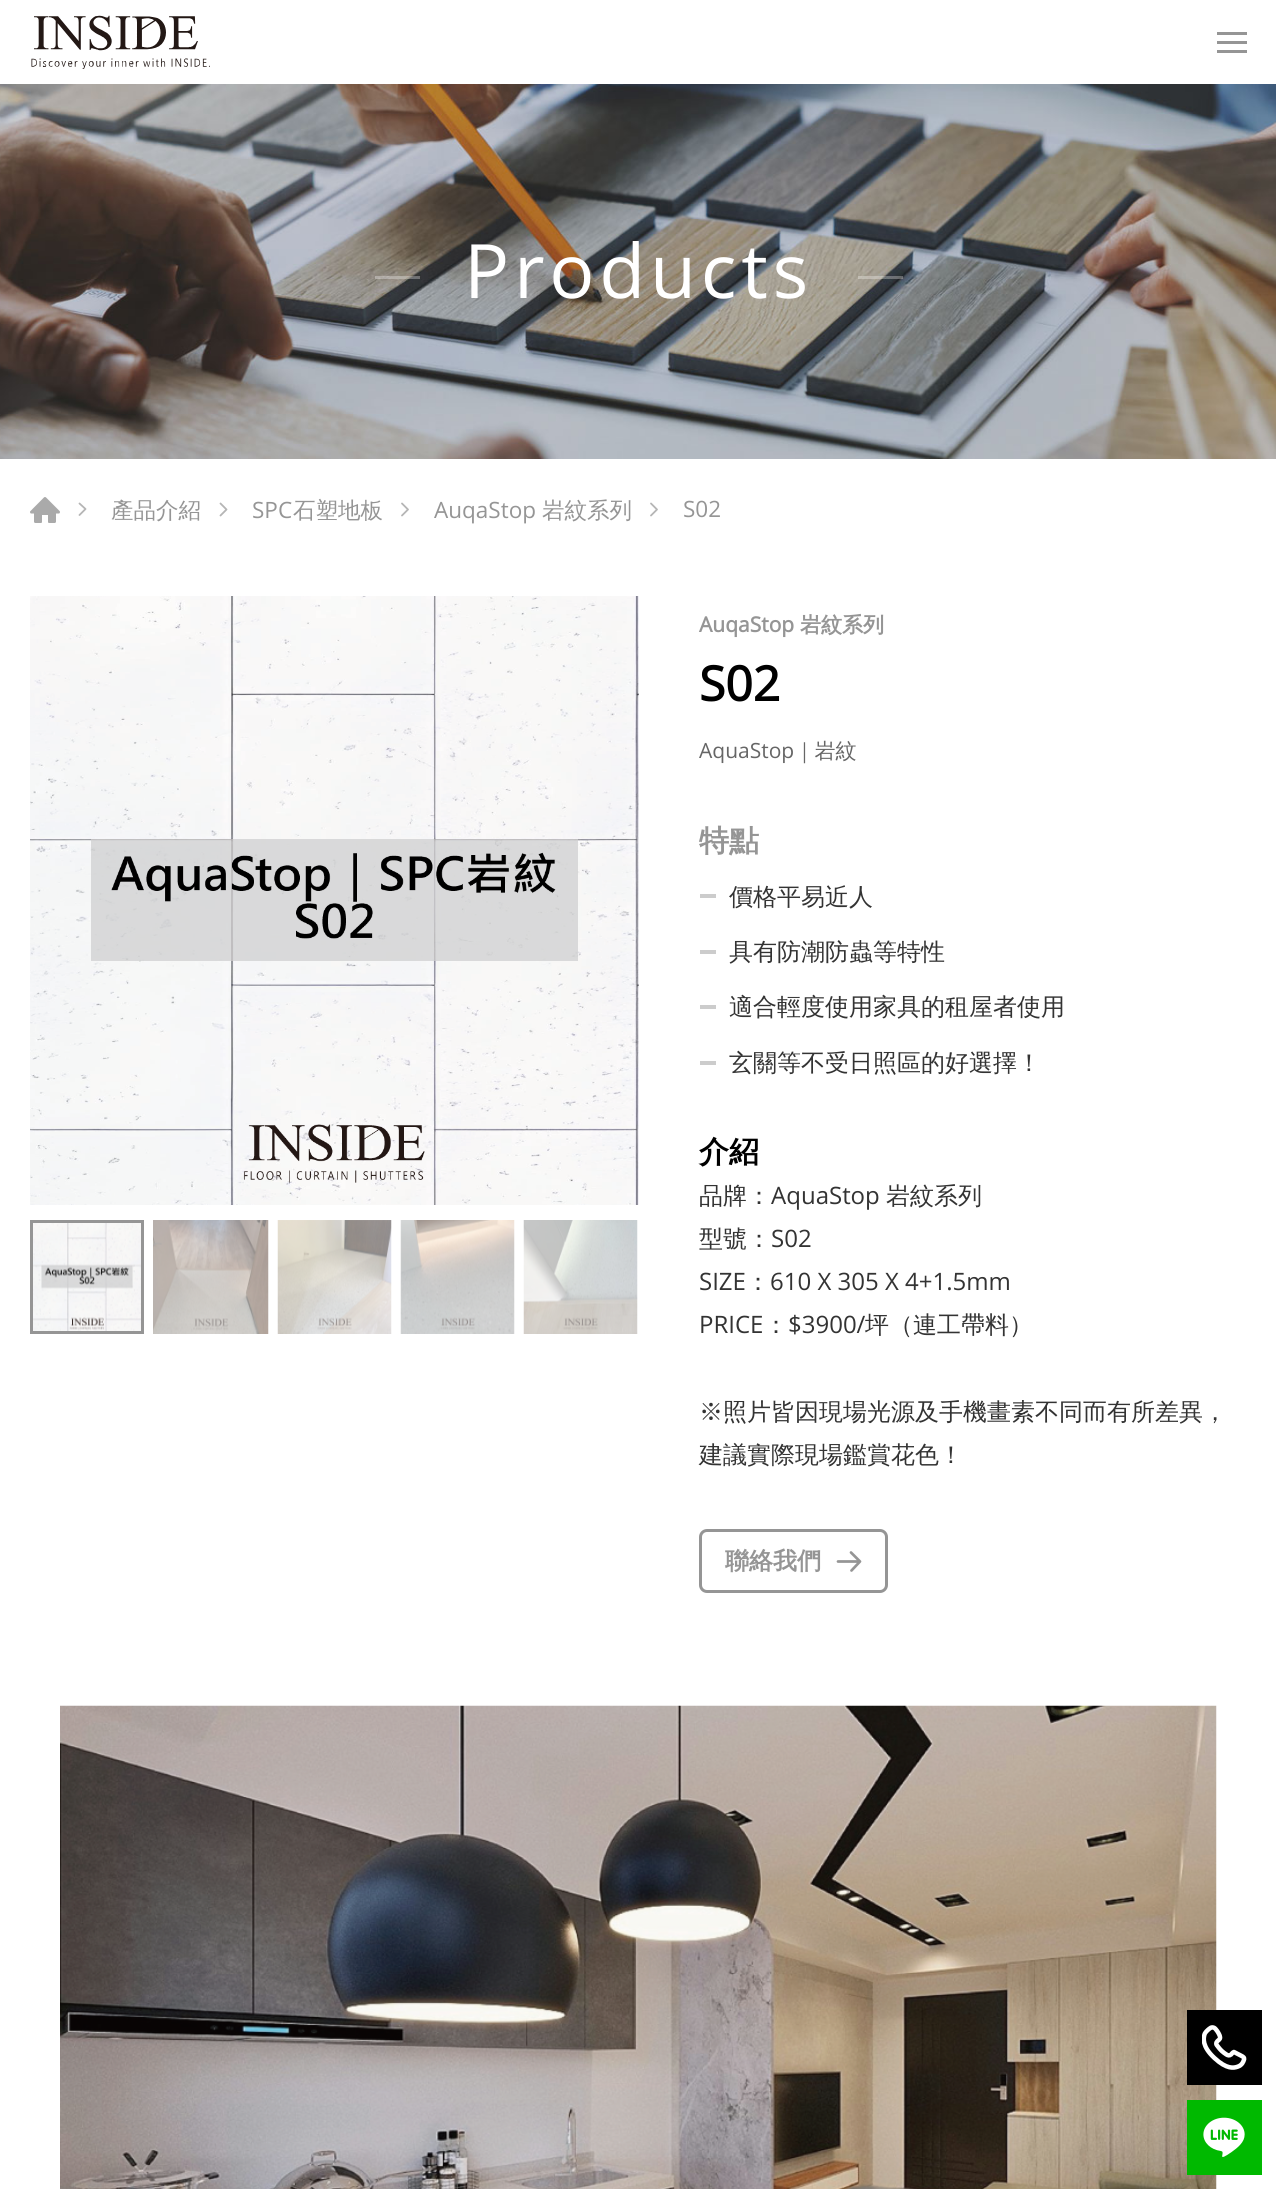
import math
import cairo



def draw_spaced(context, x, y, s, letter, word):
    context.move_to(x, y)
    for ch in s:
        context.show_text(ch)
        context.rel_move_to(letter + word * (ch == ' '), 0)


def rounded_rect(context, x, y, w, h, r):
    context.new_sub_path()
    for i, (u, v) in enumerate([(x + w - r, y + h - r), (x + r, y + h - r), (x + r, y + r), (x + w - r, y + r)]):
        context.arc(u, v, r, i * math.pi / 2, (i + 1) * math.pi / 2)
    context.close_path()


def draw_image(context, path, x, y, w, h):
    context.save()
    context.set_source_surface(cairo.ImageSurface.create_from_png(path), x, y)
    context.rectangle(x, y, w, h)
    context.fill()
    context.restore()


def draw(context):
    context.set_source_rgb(1, 1, 1)
    context.paint()
    draw_image(context, "images/1.png", 31, 15, 179, 54)
    context.set_source_rgb(149 / 255, 149 / 255, 149 / 255)
    context.rectangle(1217, 32, 30, 3)
    context.fill()
    context.rectangle(1217, 41, 30, 3)
    context.fill()
    context.rectangle(1217, 50, 30, 3)
    context.fill()
    draw_image(context, "images/2.png", 0, 84, 1276, 375)
    context.set_source_rgba(1, 1, 1, 0.3)
    context.rectangle(375, 276, 45, 3)
    context.fill()
    context.rectangle(858, 276, 45, 3)
    context.fill()
    draw_image(context, "images/3.png", 30, 497, 30, 26)
    context.new_path()
    context.move_to(79.5, 515)
    context.line_to(85.5, 509)
    context.line_to(79.5, 503.5)
    context.set_source_rgb(181 / 255, 181 / 255, 181 / 255)
    context.set_line_width(1.8)
    context.set_line_cap(cairo.LineCap.ROUND)
    context.set_line_join(cairo.LineJoin.ROUND)
    context.stroke()
    context.new_path()
    context.move_to(220.5, 515.5)
    context.line_to(226.5, 509.5)
    context.line_to(220.5, 503.5)
    context.stroke()
    context.new_path()
    context.move_to(402, 515.5)
    context.line_to(408, 509.5)
    context.line_to(402, 503.5)
    context.stroke()
    context.new_path()
    context.move_to(651, 515.5)
    context.line_to(657, 509.5)
    context.line_to(651, 503.5)
    context.stroke()
    draw_image(context, "images/4.png", 30, 596, 609, 609)
    draw_image(context, "images/5.png", 33, 1223, 108, 108)
    context.rectangle(31.5, 1221.5, 111, 111)
    context.set_source_rgb(149 / 255, 149 / 255, 149 / 255)
    context.set_line_width(3)
    context.set_line_cap(cairo.LineCap.BUTT)
    context.set_line_join(cairo.LineJoin.MITER)
    context.stroke()
    draw_image(context, "images/6.png", 153, 1220, 116, 114)
    draw_image(context, "images/7.png", 277, 1220, 115, 114)
    draw_image(context, "images/8.png", 400, 1220, 115, 114)
    draw_image(context, "images/9.png", 523, 1220, 115, 114)
    context.set_source_rgb(204 / 255, 204 / 255, 204 / 255)
    context.rectangle(700, 894, 16, 4)
    context.fill()
    context.rectangle(700, 950, 16, 4)
    context.fill()
    context.rectangle(700, 1005, 16, 4)
    context.fill()
    context.rectangle(700, 1061, 16, 4)
    context.fill()
    rounded_rect(context, 700.5, 1530.5, 186, 61, 6.5)
    context.set_source_rgb(149 / 255, 149 / 255, 149 / 255)
    context.stroke()
    context.new_path()
    context.move_to(851, 1552.5)
    context.line_to(860, 1561.5)
    context.line_to(851.5, 1570.5)
    context.move_to(860, 1561.5)
    context.line_to(838, 1561.5)
    context.set_line_width(2.7)
    context.set_line_cap(cairo.LineCap.ROUND)
    context.set_line_join(cairo.LineJoin.ROUND)
    context.stroke()
    draw_image(context, "images/10.png", 60, 1705, 1157, 484)
    context.set_source_rgb(0, 0, 0)
    context.rectangle(1187, 2010, 75, 75)
    context.fill()
    draw_image(context, "images/11.png", 1202, 2025, 45, 45)
    context.set_source_rgb(0, 185 / 255, 0)
    context.rectangle(1187, 2100, 75, 75)
    context.fill()
    draw_image(context, "images/12.png", 1203, 2117, 42, 40)
    context.select_font_face("Open Sans")
    context.set_font_size(75)
    context.set_source_rgb(1, 1, 1)
    draw_spaced(context, 464, 298, "Products", 4.75, 0)
    context.select_font_face("WenQuanYi Zen Hei Medium")
    context.set_font_size(22.5)
    context.set_source_rgb(149 / 255, 149 / 255, 149 / 255)
    context.move_to(111, 518)
    context.show_text("產品介紹")
    context.select_font_face("Open Sans")
    context.move_to(252, 518)
    context.show_text("SPC")
    context.select_font_face("WenQuanYi Zen Hei Medium")
    context.move_to(293, 518)
    context.show_text("石塑地板")
    context.select_font_face("Open Sans")
    context.move_to(434, 518)
    context.show_text("AuqaStop")
    context.select_font_face("WenQuanYi Zen Hei Medium")
    context.move_to(542, 518)
    context.show_text("岩紋系列")
    context.select_font_face("Open Sans")
    context.move_to(683, 517)
    context.show_text("S02")
    context.select_font_face("Open Sans", cairo.FontSlant.NORMAL, cairo.FontWeight.BOLD)
    context.set_font_size(21)
    context.move_to(699, 632)
    context.show_text("AuqaStop")
    context.select_font_face("WenQuanYi Zen Hei", cairo.FontSlant.NORMAL, cairo.FontWeight.BOLD)
    context.move_to(800, 632)
    context.show_text("岩紋系列")
    context.select_font_face("Open Sans", cairo.FontSlant.NORMAL, cairo.FontWeight.BOLD)
    context.set_font_size(48)
    context.set_source_rgb(0, 0, 0)
    context.move_to(699, 701)
    context.show_text("S02")
    context.select_font_face("Open Sans")
    context.set_font_size(21)
    context.set_source_rgb(102 / 255, 102 / 255, 102 / 255)
    context.move_to(699, 758)
    context.show_text("AquaStop")
    context.select_font_face("WenQuanYi Zen Hei Medium")
    context.move_to(794, 758)
    context.show_text("｜岩紋")
    context.select_font_face("WenQuanYi Zen Hei", cairo.FontSlant.NORMAL, cairo.FontWeight.BOLD)
    context.set_font_size(30)
    context.set_source_rgb(149 / 255, 149 / 255, 149 / 255)
    context.move_to(699, 851)
    context.show_text("特點")
    context.select_font_face("WenQuanYi Zen Hei Medium")
    context.set_font_size(24)
    context.set_source_rgb(51 / 255, 51 / 255, 51 / 255)
    context.move_to(729, 905)
    context.show_text("價格平易近人")
    context.move_to(729, 960)
    context.show_text("具有防潮防蟲等特性")
    context.move_to(729, 1015)
    context.show_text("適合輕度使用家具的租屋者使用")
    context.move_to(729, 1071)
    context.show_text("玄關等不受日照區的好選擇！")
    context.select_font_face("WenQuanYi Zen Hei", cairo.FontSlant.NORMAL, cairo.FontWeight.BOLD)
    context.set_font_size(30)
    context.set_source_rgb(0, 0, 0)
    context.move_to(699, 1162)
    context.show_text("介紹")
    context.select_font_face("WenQuanYi Zen Hei Medium")
    context.set_font_size(24)
    context.set_source_rgb(51 / 255, 51 / 255, 51 / 255)
    context.move_to(699, 1204)
    context.show_text("品牌：")
    context.select_font_face("Open Sans")
    context.move_to(771, 1204)
    context.show_text("AquaStop")
    context.select_font_face("WenQuanYi Zen Hei Medium")
    context.move_to(886, 1204)
    context.show_text("岩紋系列")
    context.move_to(699, 1247)
    context.show_text("型號：")
    context.select_font_face("Open Sans")
    context.move_to(771, 1247)
    context.show_text("S02")
    context.move_to(699, 1290)
    context.show_text("SIZE")
    context.select_font_face("WenQuanYi Zen Hei Medium")
    context.move_to(746, 1290)
    context.show_text("：")
    context.select_font_face("Open Sans")
    context.move_to(770, 1290)
    context.show_text("610 X 305 X 4+1.5mm")
    context.move_to(699, 1333)
    context.show_text("PRICE")
    context.select_font_face("WenQuanYi Zen Hei Medium")
    context.move_to(764, 1333)
    context.show_text("：")
    context.select_font_face("Open Sans")
    context.move_to(788, 1333)
    context.show_text("$3900/")
    context.select_font_face("WenQuanYi Zen Hei Medium")
    context.move_to(865, 1333)
    context.show_text("坪（連工帶料）")
    context.move_to(699, 1420)
    context.show_text("※照片皆因現場光源及手機畫素不同而有所差異，")
    context.move_to(699, 1463)
    context.show_text("建議實際現場鑑賞花色！")
    context.select_font_face("WenQuanYi Zen Hei", cairo.FontSlant.NORMAL, cairo.FontWeight.BOLD)
    context.set_source_rgb(149 / 255, 149 / 255, 149 / 255)
    context.move_to(725, 1569)
    context.show_text("聯絡我們")


surface = cairo.ImageSurface(cairo.Format.RGB24, 1276, 2189)
context = cairo.Context(surface)
options = cairo.FontOptions()
options.set_hint_metrics(cairo.HintMetrics.OFF)
options.set_hint_style(cairo.HintStyle.NONE)
context.set_font_options(options)
context.set_miter_limit(4)
draw(context)
surface.write_to_png("out.png")
